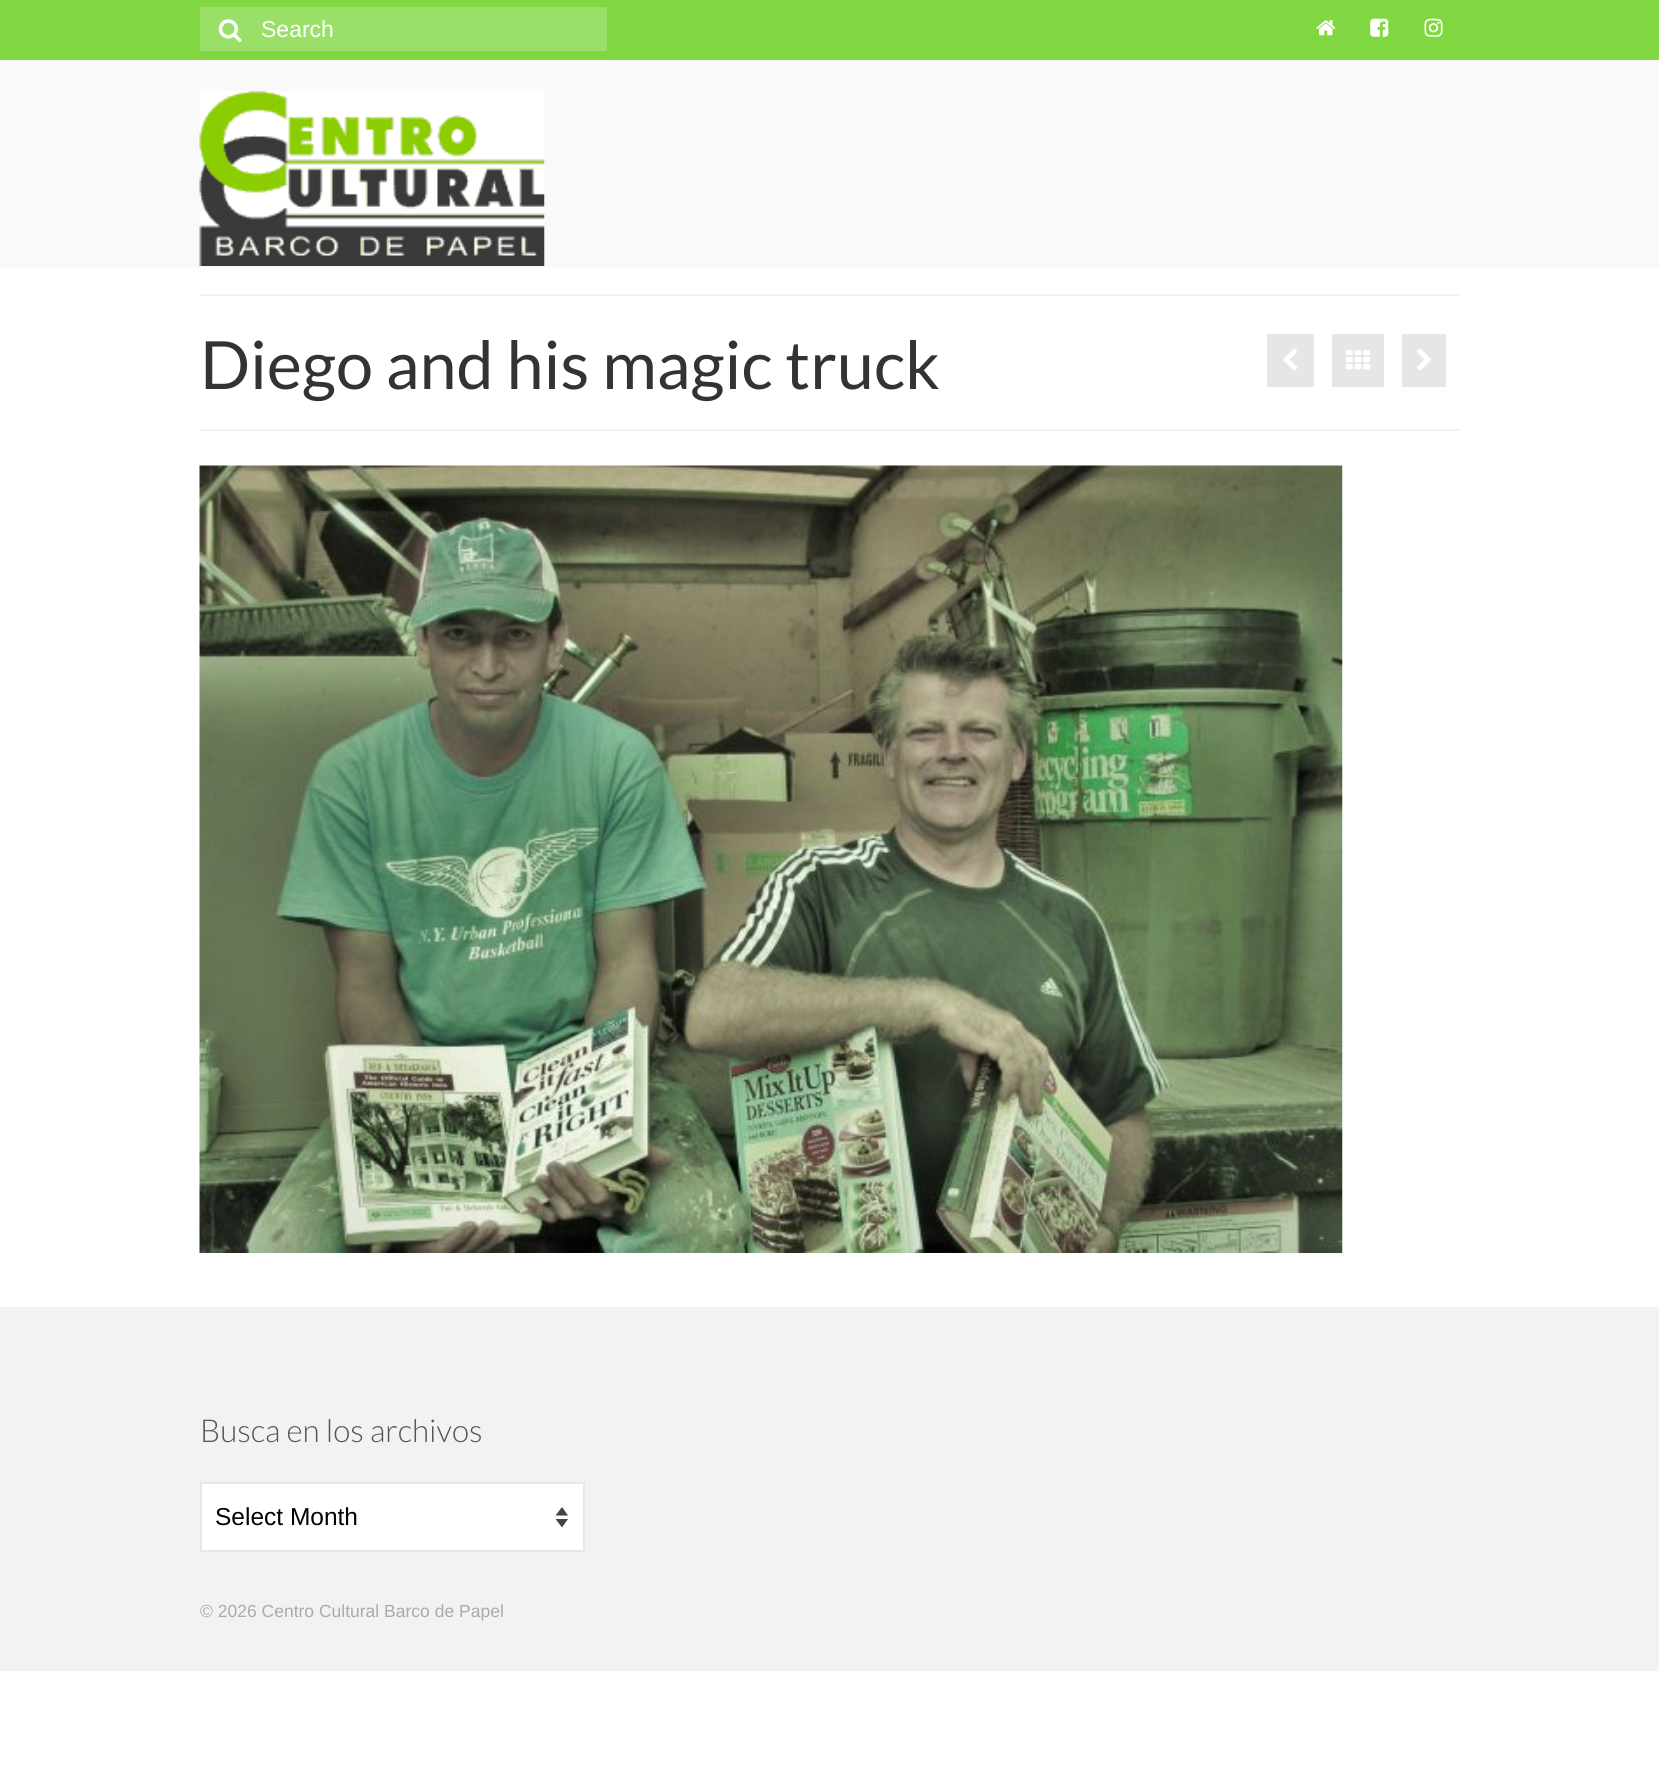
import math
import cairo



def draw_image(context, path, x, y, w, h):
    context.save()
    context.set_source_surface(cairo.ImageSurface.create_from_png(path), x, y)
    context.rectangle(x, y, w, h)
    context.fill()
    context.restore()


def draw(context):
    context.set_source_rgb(1, 1, 1)
    context.paint()
    context.set_source_rgb(249 / 255, 249 / 255, 249 / 255)
    context.rectangle(0, 60, 1659, 208)
    context.fill()
    context.set_source_rgb(129 / 255, 215 / 255, 66 / 255)
    context.rectangle(0, 0, 1659, 60)
    context.fill()
    context.set_source_rgb(154 / 255, 223 / 255, 104 / 255)
    context.rectangle(200, 7, 407, 44)
    context.fill()
    draw_image(context, "images/1.png", 218, 19, 24, 23)
    draw_image(context, "images/2.png", 1316, 20, 20, 16)
    draw_image(context, "images/3.png", 1370, 18, 19, 19)
    draw_image(context, "images/4.png", 1424, 18, 19, 19)
    draw_image(context, "images/5.png", 199, 91, 346, 175)
    context.set_source_rgb(242 / 255, 242 / 255, 242 / 255)
    context.rectangle(200, 294, 1260, 2)
    context.fill()
    context.rectangle(200, 429, 1260, 2)
    context.fill()
    context.set_source_rgb(230 / 255, 230 / 255, 230 / 255)
    context.rectangle(1267, 334, 47, 53)
    context.fill()
    draw_image(context, "images/6.png", 1283, 348, 15, 23)
    context.rectangle(1332, 334, 52, 53)
    context.fill()
    draw_image(context, "images/7.png", 1345, 350, 26, 20)
    context.rectangle(1402, 334, 44, 53)
    context.fill()
    draw_image(context, "images/8.png", 1417, 348, 14, 23)
    draw_image(context, "images/9.png", 199, 465, 1144, 788)
    context.set_source_rgb(242 / 255, 242 / 255, 242 / 255)
    context.rectangle(0, 1307, 1659, 364)
    context.fill()
    context.set_source_rgb(1, 1, 1)
    context.rectangle(202, 1484, 381, 66)
    context.fill()
    context.set_source_rgb(68 / 255, 68 / 255, 68 / 255)
    context.new_path()
    context.move_to(555.5, 1515.5)
    context.line_to(562, 1507)
    context.line_to(568, 1515.5)
    context.close_path()
    context.move_to(568, 1519)
    context.line_to(562, 1527.5)
    context.line_to(555.5, 1519)
    context.close_path()
    context.fill()
    context.rectangle(201, 1483, 383, 68)
    context.set_source_rgb(230 / 255, 230 / 255, 230 / 255)
    context.stroke()
    context.select_font_face("Liberation Sans")
    context.set_font_size(23)
    context.set_source_rgb(1, 1, 1)
    context.move_to(261, 37)
    context.show_text("Search")
    context.select_font_face("Lato")
    context.set_font_size(66.5)
    context.set_source_rgb(51 / 255, 51 / 255, 51 / 255)
    context.move_to(200, 389)
    context.show_text("Diego and his magic truck")
    context.select_font_face("Lato Light")
    context.set_font_size(31.5)
    context.set_source_rgb(85 / 255, 85 / 255, 85 / 255)
    context.move_to(200, 1442)
    context.show_text("Busca en los archivos")
    context.select_font_face("Liberation Sans")
    context.set_font_size(24.5)
    context.set_source_rgb(0, 0, 0)
    context.move_to(215, 1525)
    context.show_text("Select Month")
    context.set_font_size(17.5)
    context.set_source_rgb(170 / 255, 170 / 255, 170 / 255)
    context.move_to(200, 1617)
    context.show_text("© 2026 Centro Cultural Barco de Papel")


surface = cairo.ImageSurface(cairo.Format.RGB24, 1659, 1777)
context = cairo.Context(surface)
options = cairo.FontOptions()
options.set_hint_metrics(cairo.HintMetrics.OFF)
options.set_hint_style(cairo.HintStyle.NONE)
context.set_font_options(options)
context.set_miter_limit(4)
draw(context)
surface.write_to_png("out.png")
